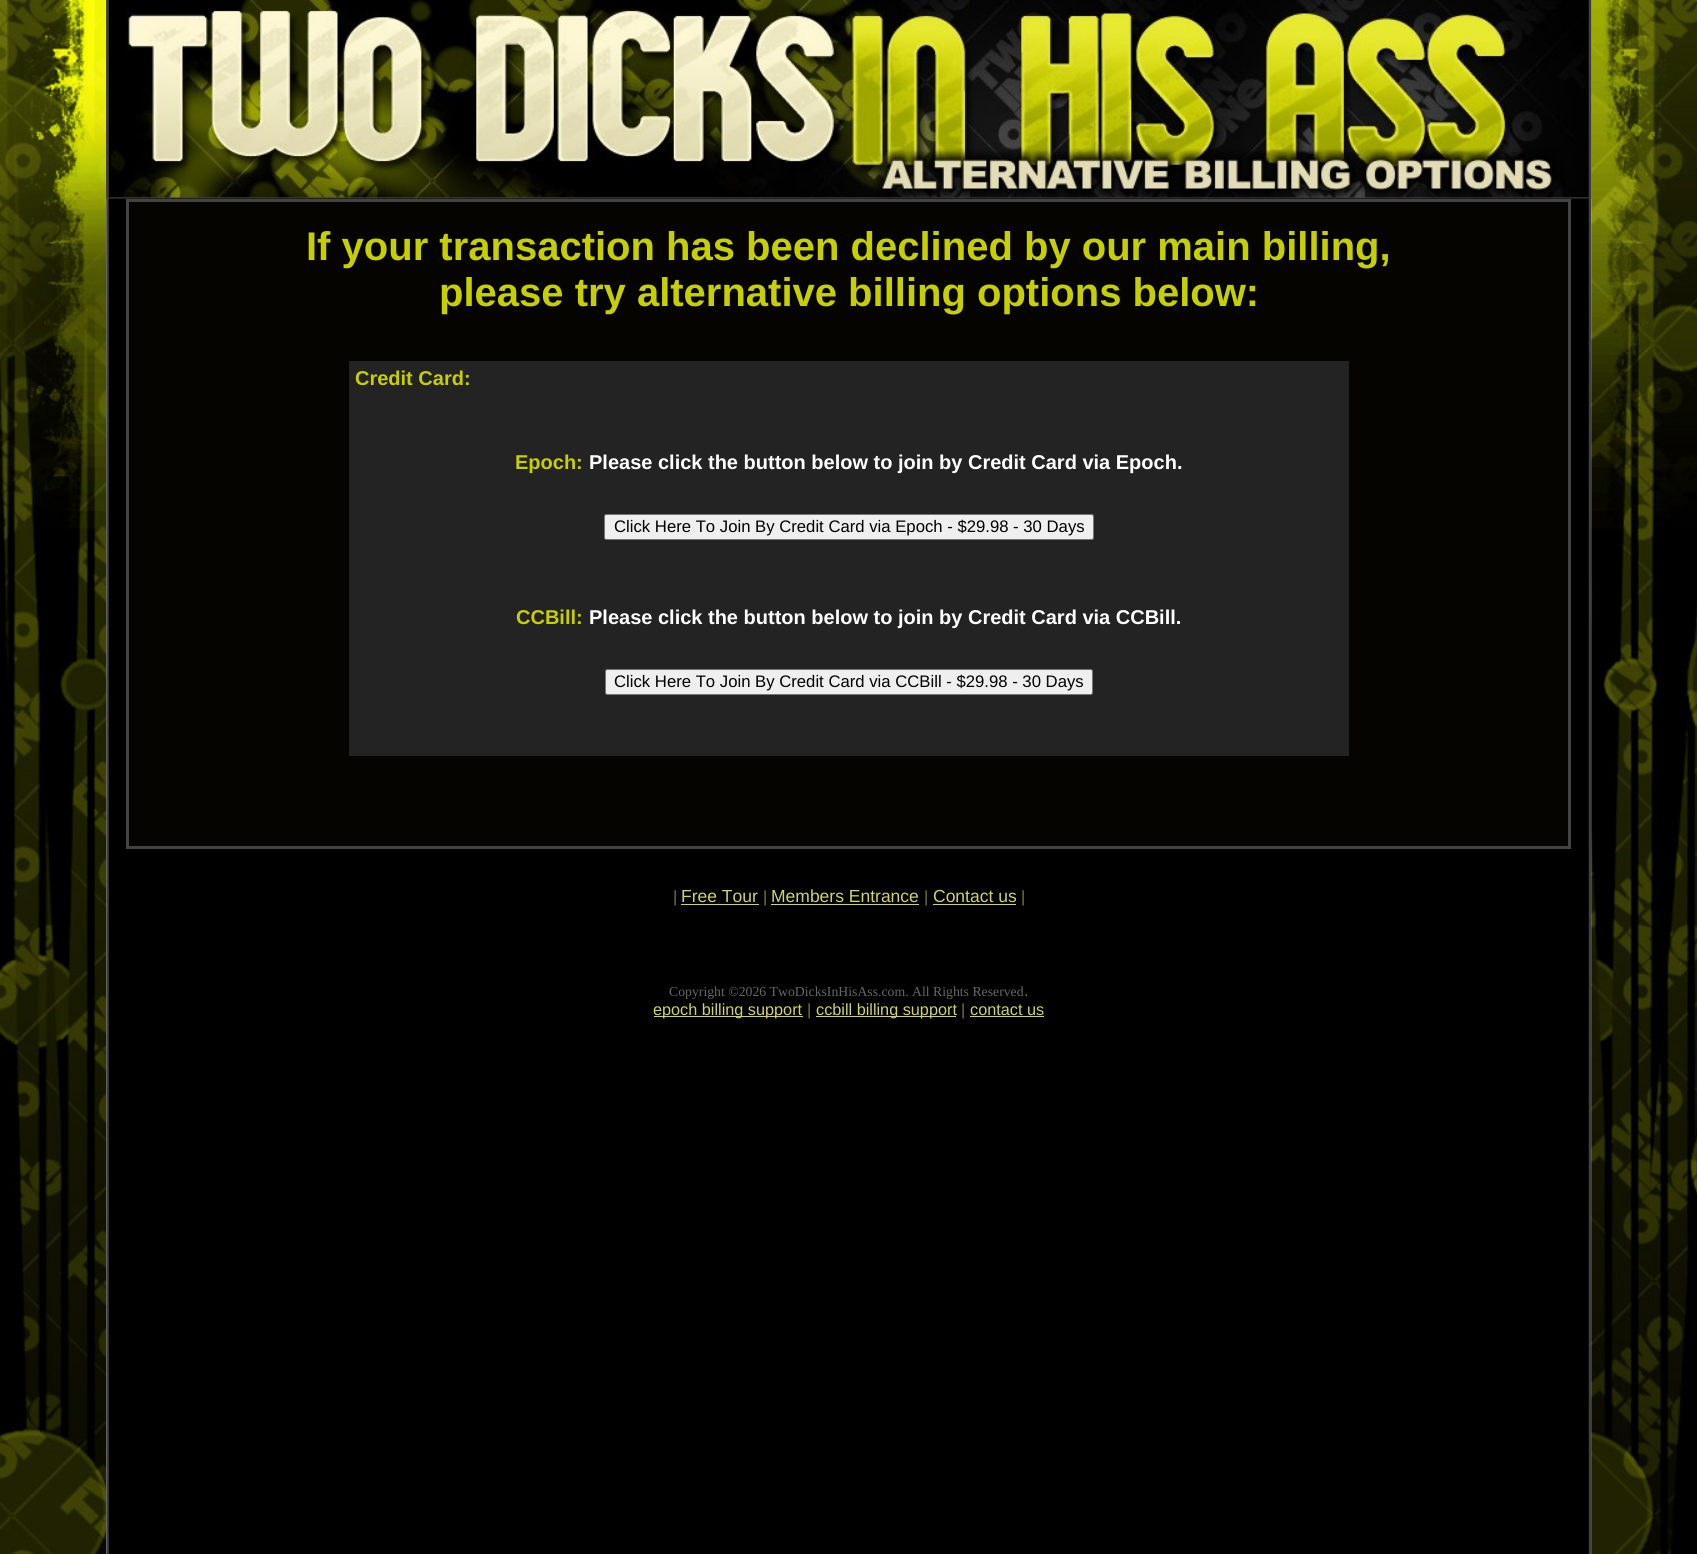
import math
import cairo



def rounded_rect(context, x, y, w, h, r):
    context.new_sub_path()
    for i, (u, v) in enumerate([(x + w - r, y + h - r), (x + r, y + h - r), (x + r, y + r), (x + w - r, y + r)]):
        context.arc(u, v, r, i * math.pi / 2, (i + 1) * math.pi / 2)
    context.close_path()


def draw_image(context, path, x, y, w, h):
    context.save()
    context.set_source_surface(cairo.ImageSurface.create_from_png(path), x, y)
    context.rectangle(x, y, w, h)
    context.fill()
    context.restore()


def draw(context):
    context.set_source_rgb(1, 1, 1)
    context.paint()
    draw_image(context, "images/1.png", 0, 0, 107, 1554)
    draw_image(context, "images/2.png", 106, 0, 1486, 1554)
    draw_image(context, "images/4.png", 1591, 0, 106, 1554)
    draw_image(context, "images/3.png", 106, 0, 1486, 199)
    context.set_source_rgb(5 / 255, 4 / 255, 0)
    context.rectangle(127.5, 200.5, 1442, 647)
    context.fill_preserve()
    context.set_source_rgb(67 / 255, 67 / 255, 67 / 255)
    context.set_line_width(3)
    context.stroke()
    context.set_source_rgb(35 / 255, 35 / 255, 35 / 255)
    context.rectangle(349, 361, 1000, 395)
    context.fill()
    context.set_source_rgb(239 / 255, 239 / 255, 239 / 255)
    rounded_rect(context, 604.5, 514.5, 489, 25, 2)
    context.fill_preserve()
    context.set_source_rgb(118 / 255, 118 / 255, 118 / 255)
    context.set_line_width(1)
    context.stroke()
    context.set_source_rgb(239 / 255, 239 / 255, 239 / 255)
    rounded_rect(context, 605.5, 669.5, 487, 25, 2)
    context.fill_preserve()
    context.set_source_rgb(118 / 255, 118 / 255, 118 / 255)
    context.stroke()
    context.set_source_rgb(207 / 255, 211 / 255, 106 / 255)
    context.rectangle(681, 904, 78, 1)
    context.fill()
    context.rectangle(771, 904, 148, 1)
    context.fill()
    context.rectangle(933, 904, 83, 1)
    context.fill()
    context.rectangle(654, 1016, 149, 1)
    context.fill()
    context.rectangle(816, 1016, 140, 1)
    context.fill()
    context.rectangle(970, 1016, 74, 1)
    context.fill()
    context.select_font_face("Liberation Sans", cairo.FontSlant.NORMAL, cairo.FontWeight.BOLD)
    context.set_font_size(40)
    context.set_source_rgb(198 / 255, 207 / 255, 2 / 255)
    context.move_to(306, 260)
    context.show_text("If your transaction has been declined by our main billing,")
    context.move_to(439, 306)
    context.show_text("please try alternative billing options below:")
    context.set_font_size(20)
    context.move_to(355, 385)
    context.show_text("Credit Card:")
    context.move_to(515, 469)
    context.show_text("Epoch:")
    context.set_source_rgb(1, 1, 1)
    context.move_to(589, 469)
    context.show_text("Please click the button below to join by Credit Card via Epoch.")
    context.select_font_face("Liberation Sans")
    context.set_font_size(16.7)
    context.set_source_rgb(0, 0, 0)
    context.move_to(614, 532)
    context.show_text("Click Here To Join By Credit Card via Epoch - $29.98 - 30 Days")
    context.select_font_face("Liberation Sans", cairo.FontSlant.NORMAL, cairo.FontWeight.BOLD)
    context.set_font_size(20)
    context.set_source_rgb(198 / 255, 207 / 255, 2 / 255)
    context.move_to(516, 624)
    context.show_text("CCBill:")
    context.set_source_rgb(1, 1, 1)
    context.move_to(589, 624)
    context.show_text("Please click the button below to join by Credit Card via CCBill.")
    context.select_font_face("Liberation Sans")
    context.set_font_size(16.7)
    context.set_source_rgb(0, 0, 0)
    context.move_to(614, 687)
    context.show_text("Click Here To Join By Credit Card via CCBill - $29.98 - 30 Days")
    context.set_font_size(16.25)
    context.set_source_rgb(119 / 255, 123 / 255, 54 / 255)
    context.move_to(673, 902)
    context.show_text("|")
    context.set_font_size(17.5)
    context.set_source_rgb(207 / 255, 211 / 255, 106 / 255)
    context.move_to(681, 902)
    context.show_text("Free Tour")
    context.set_font_size(16.25)
    context.set_source_rgb(119 / 255, 123 / 255, 54 / 255)
    context.move_to(763, 902)
    context.show_text("|")
    context.set_font_size(17.5)
    context.set_source_rgb(207 / 255, 211 / 255, 106 / 255)
    context.move_to(771, 902)
    context.show_text("Members Entrance")
    context.set_font_size(16.25)
    context.set_source_rgb(119 / 255, 123 / 255, 54 / 255)
    context.move_to(924, 902)
    context.show_text("|")
    context.set_font_size(17.5)
    context.set_source_rgb(207 / 255, 211 / 255, 106 / 255)
    context.move_to(933, 902)
    context.show_text("Contact us")
    context.set_font_size(16.25)
    context.set_source_rgb(119 / 255, 123 / 255, 54 / 255)
    context.move_to(1021, 902)
    context.show_text("|")
    context.select_font_face("Liberation Serif")
    context.set_font_size(13.75)
    context.set_source_rgb(102 / 255, 102 / 255, 102 / 255)
    context.move_to(669, 996)
    context.show_text("Copyright ©2026 TwoDicksInHisAss.com. All Rights Reserved")
    context.select_font_face("Liberation Sans")
    context.set_font_size(16.25)
    context.set_source_rgb(119 / 255, 123 / 255, 54 / 255)
    context.move_to(1024, 996)
    context.show_text(".")
    context.set_source_rgb(207 / 255, 211 / 255, 106 / 255)
    context.move_to(653, 1015)
    context.show_text("epoch billing support")
    context.set_source_rgb(119 / 255, 123 / 255, 54 / 255)
    context.move_to(807, 1015)
    context.show_text("|")
    context.set_source_rgb(207 / 255, 211 / 255, 106 / 255)
    context.move_to(816, 1015)
    context.show_text("ccbill billing support")
    context.set_source_rgb(119 / 255, 123 / 255, 54 / 255)
    context.move_to(961, 1015)
    context.show_text("|")
    context.set_source_rgb(207 / 255, 211 / 255, 106 / 255)
    context.move_to(970, 1015)
    context.show_text("contact us")


surface = cairo.ImageSurface(cairo.Format.RGB24, 1697, 1554)
context = cairo.Context(surface)
options = cairo.FontOptions()
options.set_hint_metrics(cairo.HintMetrics.OFF)
options.set_hint_style(cairo.HintStyle.NONE)
context.set_font_options(options)
context.set_miter_limit(4)
draw(context)
surface.write_to_png("out.png")
